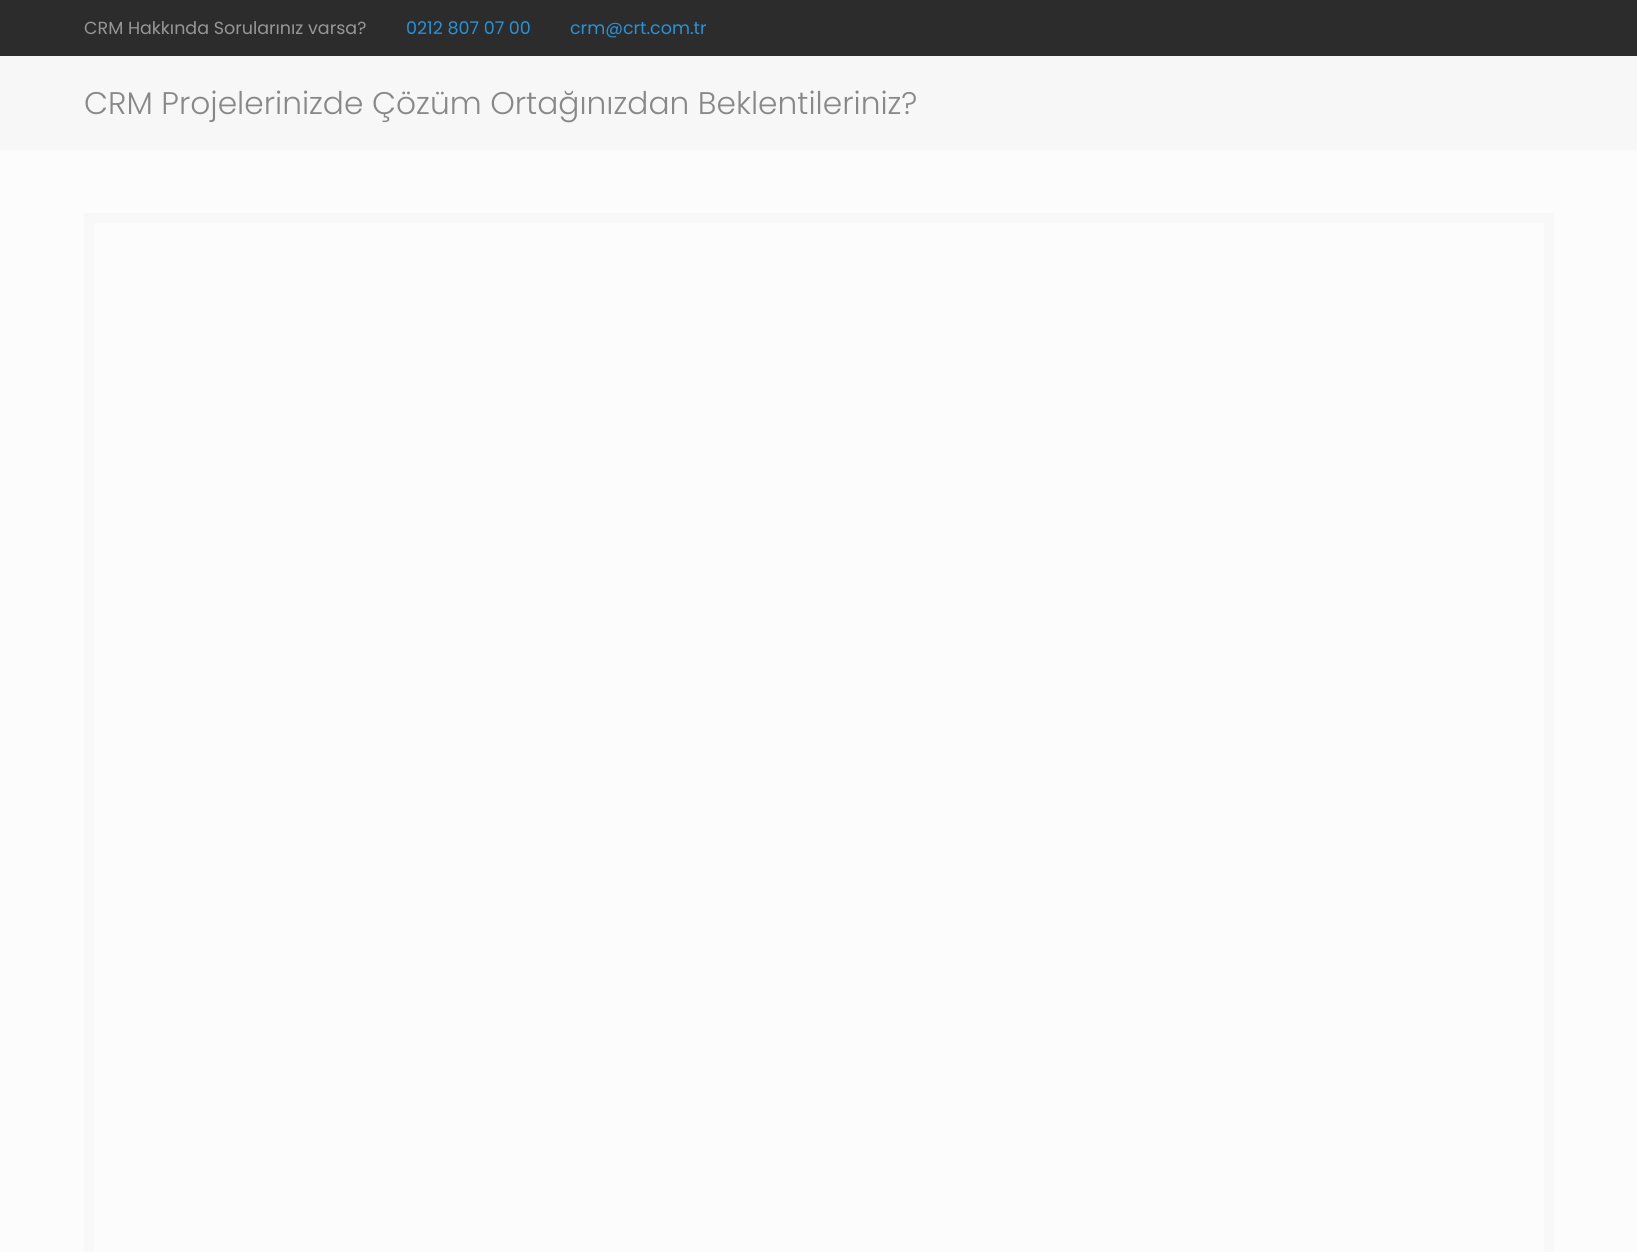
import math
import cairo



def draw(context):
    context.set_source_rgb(252 / 255, 252 / 255, 252 / 255)
    context.paint()
    context.set_source_rgb(44 / 255, 44 / 255, 44 / 255)
    context.rectangle(0, 0, 1637, 56)
    context.fill()
    context.set_source_rgb(247 / 255, 247 / 255, 247 / 255)
    context.rectangle(0, 56, 1637, 94)
    context.fill()
    context.rectangle(89, 218, 1460, 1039)
    context.set_source_rgb(248 / 255, 248 / 255, 248 / 255)
    context.set_line_width(10)
    context.stroke()
    context.select_font_face("Poppins")
    context.set_font_size(17.5)
    context.set_source_rgb(150 / 255, 150 / 255, 150 / 255)
    context.move_to(84, 34)
    context.show_text("CRM Hakkında Sorularınız varsa?")
    context.set_source_rgb(41 / 255, 145 / 255, 214 / 255)
    context.move_to(406, 34)
    context.show_text("0212 807 07 00")
    context.move_to(570, 34)
    context.show_text("crm@crt.com.tr")
    context.select_font_face("Poppins Light")
    context.set_font_size(31.25)
    context.set_source_rgb(136 / 255, 136 / 255, 136 / 255)
    context.move_to(84, 114)
    context.show_text("CRM Projelerinizde Çözüm Ortağınızdan Beklentileriniz?")


surface = cairo.ImageSurface(cairo.Format.RGB24, 1637, 1252)
context = cairo.Context(surface)
options = cairo.FontOptions()
options.set_hint_metrics(cairo.HintMetrics.OFF)
options.set_hint_style(cairo.HintStyle.NONE)
context.set_font_options(options)
context.set_miter_limit(4)
draw(context)
surface.write_to_png("out.png")
